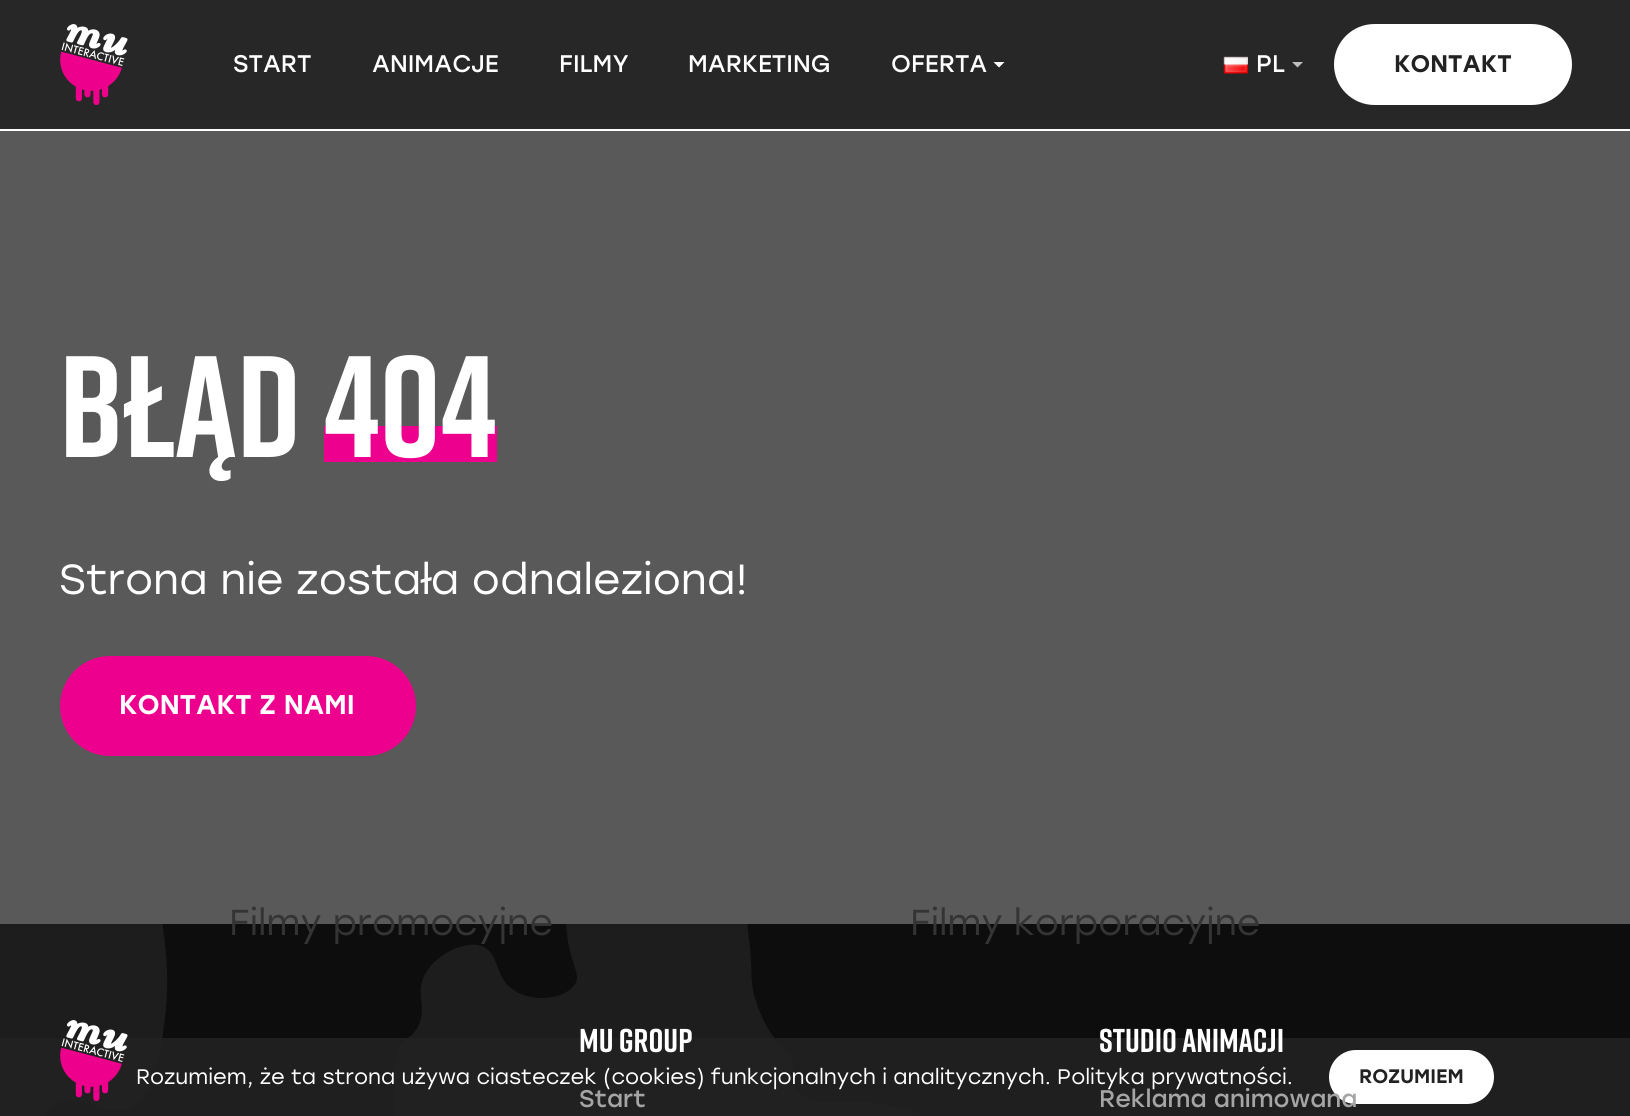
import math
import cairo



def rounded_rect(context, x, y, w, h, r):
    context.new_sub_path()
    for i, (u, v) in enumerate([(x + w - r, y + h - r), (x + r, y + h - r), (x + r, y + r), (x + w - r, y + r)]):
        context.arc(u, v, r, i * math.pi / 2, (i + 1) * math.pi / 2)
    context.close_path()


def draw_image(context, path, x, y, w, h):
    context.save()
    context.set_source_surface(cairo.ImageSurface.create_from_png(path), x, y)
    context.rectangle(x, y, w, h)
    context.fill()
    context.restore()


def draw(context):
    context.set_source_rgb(89 / 255, 89 / 255, 89 / 255)
    context.paint()
    context.set_source_rgb(39 / 255, 39 / 255, 39 / 255)
    context.rectangle(0, 0, 1630, 129)
    context.fill()
    context.set_source_rgb(1, 1, 1)
    context.rectangle(0, 129, 1630, 2)
    context.fill()
    draw_image(context, "images/1.png", 60, 24, 68, 81)
    context.save()
    context.rectangle(993, 62, 12, 6)
    context.clip()
    context.new_path()
    context.move_to(1005, 61.5)
    context.line_to(993, 61.5)
    context.line_to(999, 67.5)
    context.close_path()
    context.fill()
    context.restore()
    draw_image(context, "images/2.png", 1223, 56, 25, 18)
    context.save()
    context.rectangle(1292, 62, 12, 6)
    context.clip()
    context.set_source_rgb(190 / 255, 190 / 255, 190 / 255)
    context.new_path()
    context.move_to(1303.5, 61.5)
    context.line_to(1291.5, 61.5)
    context.line_to(1297.5, 67.5)
    context.close_path()
    context.fill()
    context.restore()
    rounded_rect(context, 1334, 24, 238, 81, 40.5)
    context.fill()
    context.set_source_rgb(237 / 255, 0, 141 / 255)
    context.rectangle(324, 426, 173, 36)
    context.fill()
    rounded_rect(context, 60, 656, 356, 100, 50)
    context.fill()
    context.set_source_rgb(13 / 255, 13 / 255, 13 / 255)
    context.rectangle(45, 924, 1585, 192)
    context.fill()
    draw_image(context, "images/3.png", 0, 924, 921, 192)
    context.set_source_rgba(34 / 255, 34 / 255, 34 / 255, 0.9)
    context.rectangle(0, 1038, 1630, 78)
    context.fill()
    draw_image(context, "images/4.png", 60, 1020, 68, 81)
    context.set_source_rgb(1, 1, 1)
    rounded_rect(context, 1329, 1050, 165, 54, 27)
    context.fill()
    context.select_font_face("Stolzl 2")
    context.set_font_size(24)
    context.move_to(233, 72)
    context.show_text("START")
    context.move_to(372, 72)
    context.show_text("ANIMACJE")
    context.move_to(559, 72)
    context.show_text("FILMY")
    context.move_to(688, 72)
    context.show_text("MARKETING")
    context.move_to(891, 72)
    context.show_text("OFERTA")
    context.select_font_face("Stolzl")
    context.set_font_size(36)
    context.set_source_rgb(52 / 255, 52 / 255, 52 / 255)
    context.move_to(229, 935)
    context.show_text("Filmy promocyjne")
    context.move_to(910, 935)
    context.show_text("Filmy korporacyjne")
    context.select_font_face("Stolzl 2")
    context.set_font_size(24)
    context.set_source_rgb(1, 1, 1)
    context.move_to(1256, 72)
    context.show_text("PL")
    context.select_font_face("Stolzl Medium")
    context.set_source_rgb(34 / 255, 34 / 255, 34 / 255)
    context.move_to(1394, 72)
    context.show_text("KONTAKT")
    context.select_font_face("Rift", cairo.FontSlant.NORMAL, cairo.FontWeight.BOLD)
    context.set_font_size(144)
    context.set_source_rgb(1, 1, 1)
    context.move_to(59, 457)
    context.show_text("Błąd 404")
    context.select_font_face("Stolzl")
    context.set_font_size(42)
    context.move_to(59, 594)
    context.show_text("Strona nie została odnaleziona!")
    context.select_font_face("Stolzl Medium")
    context.set_font_size(27)
    context.move_to(119, 714)
    context.show_text("KONTAKT Z NAMI")
    context.select_font_face("Rift", cairo.FontSlant.NORMAL, cairo.FontWeight.BOLD)
    context.set_font_size(33)
    context.move_to(579, 1052)
    context.show_text("MU GROUP")
    context.select_font_face("Stolzl 2")
    context.set_font_size(24)
    context.set_source_rgb(165 / 255, 165 / 255, 165 / 255)
    context.move_to(579, 1107)
    context.show_text("Start")
    context.select_font_face("Rift", cairo.FontSlant.NORMAL, cairo.FontWeight.BOLD)
    context.set_font_size(33)
    context.set_source_rgb(1, 1, 1)
    context.move_to(1099, 1052)
    context.show_text("STUDIO ANIMACJI")
    context.select_font_face("Stolzl 2")
    context.set_font_size(24)
    context.set_source_rgb(165 / 255, 165 / 255, 165 / 255)
    context.move_to(1099, 1107)
    context.show_text("Reklama animowana")
    context.select_font_face("Stolzl")
    context.set_font_size(21)
    context.set_source_rgb(1, 1, 1)
    context.move_to(136, 1084)
    context.show_text("Rozumiem, że ta strona używa ciasteczek (cookies) funkcjonalnych i analitycznych. Polityka prywatności.")
    context.select_font_face("Stolzl Medium")
    context.set_font_size(19.5)
    context.set_source_rgb(34 / 255, 34 / 255, 34 / 255)
    context.move_to(1359, 1083)
    context.show_text("ROZUMIEM")


surface = cairo.ImageSurface(cairo.Format.RGB24, 1630, 1116)
context = cairo.Context(surface)
options = cairo.FontOptions()
options.set_hint_metrics(cairo.HintMetrics.OFF)
options.set_hint_style(cairo.HintStyle.NONE)
context.set_font_options(options)
context.set_miter_limit(4)
draw(context)
surface.write_to_png("out.png")
